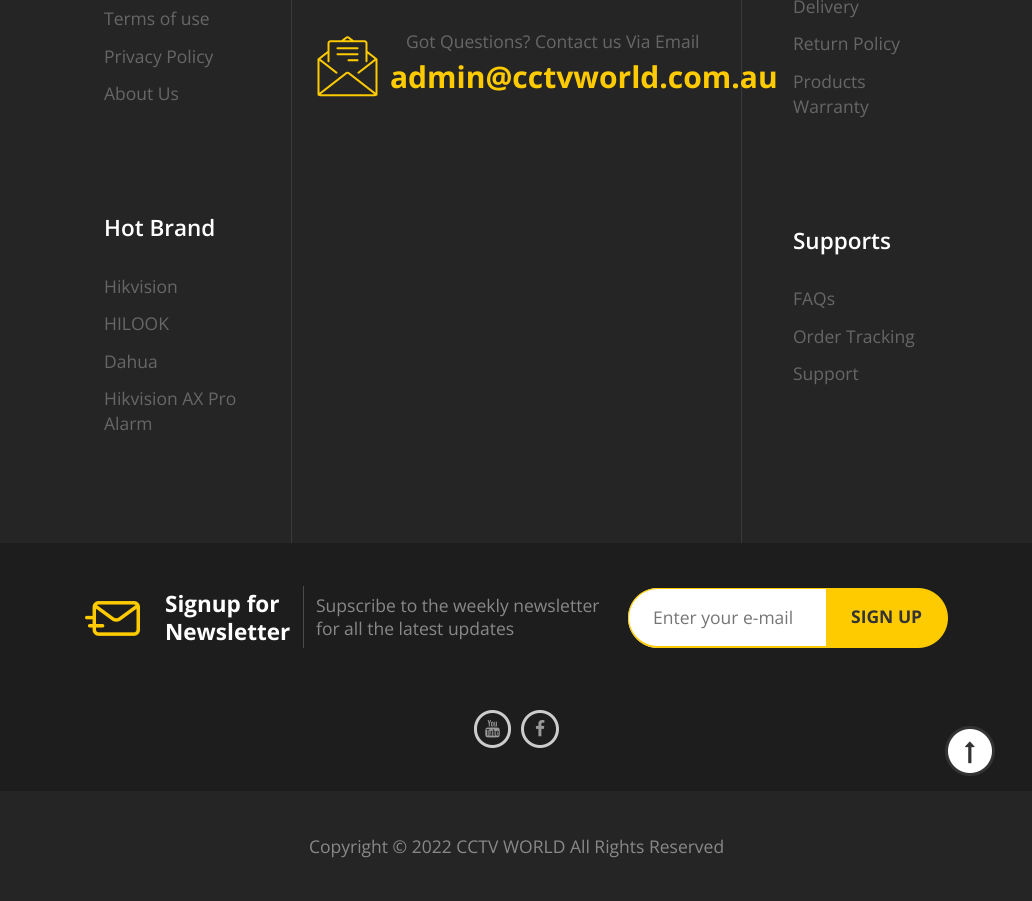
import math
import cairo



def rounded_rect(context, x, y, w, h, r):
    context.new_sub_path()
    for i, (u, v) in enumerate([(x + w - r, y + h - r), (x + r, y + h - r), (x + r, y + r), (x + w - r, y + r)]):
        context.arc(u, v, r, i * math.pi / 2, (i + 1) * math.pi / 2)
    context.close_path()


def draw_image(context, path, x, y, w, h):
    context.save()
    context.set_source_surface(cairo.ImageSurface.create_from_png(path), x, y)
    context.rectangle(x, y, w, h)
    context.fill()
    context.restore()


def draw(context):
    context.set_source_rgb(37 / 255, 37 / 255, 37 / 255)
    context.paint()
    context.set_source_rgb(59 / 255, 59 / 255, 59 / 255)
    context.rectangle(291, 0, 1, 543)
    context.fill()
    draw_image(context, "images/1.png", 317, 36, 61, 61)
    context.set_source_rgba(1, 1, 1, 0.1)
    context.rectangle(741, 0, 1, 543)
    context.fill()
    context.set_source_rgb(29 / 255, 29 / 255, 29 / 255)
    context.rectangle(0, 543, 1032, 248)
    context.fill()
    draw_image(context, "images/2.png", 85, 601, 55, 35)
    context.set_source_rgb(74 / 255, 74 / 255, 74 / 255)
    context.rectangle(303, 586, 1, 62)
    context.fill()
    context.set_source_rgb(1, 1, 1)
    context.new_path()
    context.move_to(658, 588)
    context.line_to(826, 588)
    context.line_to(826, 648)
    context.line_to(658, 648)
    context.curve_to(641.5, 648, 628, 634.5, 628, 618)
    context.curve_to(628, 601.5, 641.5, 588, 658, 588)
    context.close_path()
    context.fill()
    context.set_source_rgb(254 / 255, 203 / 255, 0)
    context.set_fill_rule(cairo.FillRule.EVEN_ODD)
    context.new_path()
    context.move_to(658, 588)
    context.line_to(826, 588)
    context.line_to(826, 648)
    context.line_to(658, 648)
    context.curve_to(641, 648, 628, 634, 628, 618)
    context.curve_to(628, 601, 641, 588, 658, 588)
    context.close_path()
    context.move_to(658, 589)
    context.line_to(826, 589)
    context.line_to(826, 646)
    context.line_to(658, 646)
    context.curve_to(642, 646, 629, 633, 629, 618)
    context.curve_to(629, 602, 642, 589, 658, 589)
    context.close_path()
    context.fill()
    context.new_path()
    context.move_to(826, 588)
    context.line_to(918, 588)
    context.curve_to(934.5, 588, 948, 601.5, 948, 618)
    context.curve_to(948, 634.5, 934.5, 648, 918, 648)
    context.line_to(826, 648)
    context.close_path()
    context.fill()
    rounded_rect(context, 475.5, 711.5, 34, 35, 17)
    context.set_source_rgb(204 / 255, 204 / 255, 204 / 255)
    context.set_line_width(3)
    context.stroke()
    draw_image(context, "images/3.png", 485, 720, 15, 18)
    context.arc(540, 729, 17.5, 0, 2 * math.pi)
    context.stroke()
    draw_image(context, "images/4.png", 535, 720, 10, 17)
    context.set_source_rgb(1, 1, 1)
    context.arc(970, 751, 23.5, 0, 2 * math.pi)
    context.fill_preserve()
    context.set_source_rgb(51 / 255, 51 / 255, 51 / 255)
    context.stroke()
    draw_image(context, "images/5.png", 965, 741, 10, 23)
    context.select_font_face("Open Sans")
    context.set_font_size(17.5)
    context.set_source_rgb(102 / 255, 102 / 255, 102 / 255)
    context.move_to(104, 25)
    context.show_text("Terms of use")
    context.move_to(104, 63)
    context.show_text("Privacy Policy")
    context.move_to(104, 100)
    context.show_text("About Us")
    context.select_font_face("Open Sans SemiBold")
    context.set_font_size(22.5)
    context.set_source_rgb(1, 1, 1)
    context.move_to(104, 236)
    context.show_text("Hot Brand")
    context.select_font_face("Open Sans")
    context.set_font_size(17.5)
    context.set_source_rgb(102 / 255, 102 / 255, 102 / 255)
    context.move_to(104, 293)
    context.show_text("Hikvision")
    context.move_to(104, 330)
    context.show_text("HILOOK")
    context.move_to(104, 368)
    context.show_text("Dahua")
    context.move_to(104, 405)
    context.show_text("Hikvision AX Pro")
    context.move_to(104, 430)
    context.show_text("Alarm")
    context.move_to(406, 48)
    context.show_text("Got Questions? Contact us Via Email")
    context.select_font_face("Open Sans", cairo.FontSlant.NORMAL, cairo.FontWeight.BOLD)
    context.set_font_size(30)
    context.set_source_rgb(254 / 255, 203 / 255, 0)
    context.move_to(390, 88)
    context.show_text("admin@cctvworld.com.au")
    context.select_font_face("Open Sans")
    context.set_font_size(17.5)
    context.set_source_rgb(102 / 255, 102 / 255, 102 / 255)
    context.move_to(793, 13)
    context.show_text("Delivery")
    context.move_to(793, 50)
    context.show_text("Return Policy")
    context.move_to(793, 88)
    context.show_text("Products")
    context.move_to(793, 113)
    context.show_text("Warranty")
    context.select_font_face("Open Sans SemiBold")
    context.set_font_size(22.5)
    context.set_source_rgb(1, 1, 1)
    context.move_to(793, 249)
    context.show_text("Supports")
    context.select_font_face("Open Sans")
    context.set_font_size(17.5)
    context.set_source_rgb(102 / 255, 102 / 255, 102 / 255)
    context.move_to(793, 305)
    context.show_text("FAQs")
    context.move_to(793, 343)
    context.show_text("Order Tracking")
    context.move_to(793, 380)
    context.show_text("Support")
    context.select_font_face("Open Sans", cairo.FontSlant.NORMAL, cairo.FontWeight.BOLD)
    context.set_font_size(22.5)
    context.set_source_rgb(1, 1, 1)
    context.move_to(165, 612)
    context.show_text("Signup for")
    context.move_to(165, 640)
    context.show_text("Newsletter")
    context.select_font_face("Open Sans")
    context.set_font_size(17.5)
    context.set_source_rgb(136 / 255, 136 / 255, 136 / 255)
    context.move_to(316, 612)
    context.show_text("Supscribe to the weekly newsletter")
    context.move_to(316, 635)
    context.show_text("for all the latest updates")
    context.set_source_rgb(117 / 255, 117 / 255, 117 / 255)
    context.move_to(653, 624)
    context.show_text("Enter your e-mail")
    context.select_font_face("Open Sans", cairo.FontSlant.NORMAL, cairo.FontWeight.BOLD)
    context.set_source_rgb(51 / 255, 51 / 255, 51 / 255)
    context.move_to(851, 623)
    context.show_text("SIGN UP")
    context.select_font_face("Open Sans")
    context.set_source_rgb(136 / 255, 136 / 255, 136 / 255)
    context.move_to(309, 853)
    context.show_text("Copyright © 2022 CCTV WORLD All Rights Reserved")


surface = cairo.ImageSurface(cairo.Format.RGB24, 1032, 901)
context = cairo.Context(surface)
options = cairo.FontOptions()
options.set_hint_metrics(cairo.HintMetrics.OFF)
options.set_hint_style(cairo.HintStyle.NONE)
context.set_font_options(options)
context.set_miter_limit(4)
draw(context)
surface.write_to_png("out.png")
